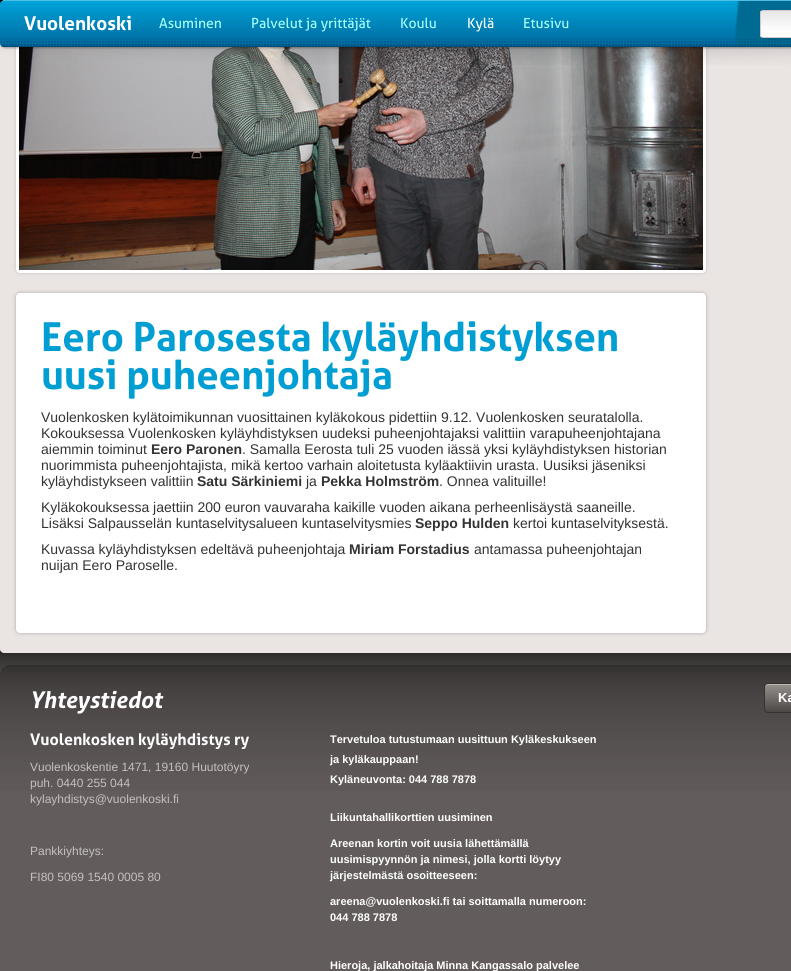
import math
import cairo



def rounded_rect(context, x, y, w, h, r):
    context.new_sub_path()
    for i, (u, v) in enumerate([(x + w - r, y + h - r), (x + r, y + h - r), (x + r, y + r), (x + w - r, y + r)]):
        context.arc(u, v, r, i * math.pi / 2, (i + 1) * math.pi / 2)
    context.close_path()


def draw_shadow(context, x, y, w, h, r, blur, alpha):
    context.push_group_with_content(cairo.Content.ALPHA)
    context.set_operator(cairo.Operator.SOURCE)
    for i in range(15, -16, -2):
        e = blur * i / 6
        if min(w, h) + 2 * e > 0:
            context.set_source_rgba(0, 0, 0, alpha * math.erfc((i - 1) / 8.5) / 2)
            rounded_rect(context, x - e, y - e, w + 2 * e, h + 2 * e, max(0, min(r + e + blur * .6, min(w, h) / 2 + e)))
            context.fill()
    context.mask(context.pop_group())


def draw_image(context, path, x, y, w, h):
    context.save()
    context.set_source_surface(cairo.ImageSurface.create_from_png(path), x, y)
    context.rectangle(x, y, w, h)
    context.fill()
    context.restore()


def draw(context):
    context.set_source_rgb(123 / 255, 116 / 255, 115 / 255)
    context.paint()
    draw_image(context, "images/4.png", 0, 649, 791, 142)
    context.set_source_rgb(0, 0, 0)
    draw_shadow(context, 0, -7, 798, 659, 4, 1, 0.3)
    context.set_source_rgb(234 / 255, 228 / 255, 227 / 255)
    rounded_rect(context, 0, -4, 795, 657, 4)
    context.fill()
    context.set_source_rgb(0, 0, 0)
    draw_shadow(context, 16, -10, 690, 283, 4, 2, 0.15)
    rounded_rect(context, 17.5, -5.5, 687, 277, 2.5)
    context.set_source_rgb(1, 1, 1)
    context.set_line_width(3)
    context.stroke()
    draw_image(context, "images/3.png", 19, 47, 684, 223)
    draw_image(context, "images/1.png", 0, 0, 791, 65)
    context.set_source_rgb(0, 0, 0)
    draw_shadow(context, 0, 1, 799, 47, 5, 1, 0.3)
    context.set_source_rgb(0, 163 / 255, 217 / 255)
    rounded_rect(context, 0, 0, 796, 47, 5)
    context.fill()
    context.save()
    rounded_rect(context, 0, 0, 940, 47, 5)
    context.clip()
    gradient = cairo.LinearGradient(470, -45, 470, 1)
    gradient.add_color_stop_rgba(0, 0, 163 / 255, 217 / 255, 1)
    gradient.add_color_stop_rgba(1, 0, 103 / 255, 155 / 255, 1)
    context.set_source(gradient)
    context.rectangle(0, 0, 3, 1)
    context.fill()
    gradient = cairo.LinearGradient(470, 1, 470, 47)
    gradient.add_color_stop_rgba(0, 0, 163 / 255, 217 / 255, 1)
    gradient.add_color_stop_rgba(1, 0, 103 / 255, 155 / 255, 1)
    context.set_source(gradient)
    context.new_path()
    context.move_to(0, 1)
    context.line_to(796, 1)
    context.line_to(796, 42)
    context.curve_to(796, 45, 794, 47, 791, 47)
    context.line_to(5, 47)
    context.curve_to(2, 47, 0, 45, 0, 42)
    context.close_path()
    context.fill()
    context.restore()
    context.set_source_rgb(77 / 255, 191 / 255, 228 / 255)
    context.rectangle(3, 0, 788, 1)
    context.fill()
    gradient = cairo.LinearGradient(734, 15, 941, 33)
    gradient.add_color_stop_rgba(0.01, 0, 107 / 255, 146 / 255, 0)
    gradient.add_color_stop_rgba(0.02, 0, 107 / 255, 146 / 255, 1)
    context.set_source(gradient)
    context.rectangle(735, 1, 56, 45)
    context.fill()
    context.set_source_rgb(0, 0, 0)
    draw_shadow(context, 761, 11, 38, 28, 3, 1.5, 0.15)
    context.save()
    rounded_rect(context, 760, 10, 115, 28, 3)
    context.clip()
    gradient = cairo.LinearGradient(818, 37, 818, 11)
    gradient.add_color_stop_rgba(0.2, 1, 1, 1, 1)
    gradient.add_color_stop_rgba(1, 231 / 255, 230 / 255, 230 / 255, 1)
    context.set_source(gradient)
    context.rectangle(760, 11, 31, 26)
    context.fill()
    context.restore()
    rounded_rect(context, 760.5, 10.5, 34, 27, 2.5)
    context.set_source_rgb(204 / 255, 204 / 255, 204 / 255)
    context.set_line_width(1)
    context.stroke()
    draw_image(context, "images/2.png", 0, 39, 791, 8)
    context.set_source_rgb(0, 0, 0)
    draw_shadow(context, 16, 293, 690, 340, 4, 2, 0.25)
    context.set_source_rgb(1, 1, 1)
    rounded_rect(context, 16, 293, 690, 340, 4)
    context.fill()
    context.set_source_rgba(0, 0, 0, 0.2)
    rounded_rect(context, 0, 665, 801, 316, 10)
    context.fill()
    gradient = cairo.LinearGradient(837, 684, 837, 712)
    gradient.add_color_stop_rgba(0, 149 / 255, 145 / 255, 140 / 255, 1)
    gradient.add_color_stop_rgba(1, 77 / 255, 72 / 255, 70 / 255, 1)
    context.set_source(gradient)
    context.rectangle(765, 684, 26, 27)
    context.fill()
    context.set_source_rgba(1, 1, 1, 0.35)
    context.new_path()
    context.move_to(768, 685)
    context.line_to(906, 685)
    context.curve_to(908, 685, 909, 686, 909, 688)
    context.line_to(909, 687)
    context.curve_to(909, 685, 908, 684, 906, 684)
    context.line_to(768, 684)
    context.curve_to(766, 684, 765, 685, 765, 687)
    context.line_to(765, 688)
    context.curve_to(765, 686, 766, 685, 768, 685)
    context.close_path()
    context.fill()
    rounded_rect(context, 764.5, 683.5, 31, 29, 3.5)
    context.set_source_rgb(54 / 255, 51 / 255, 49 / 255)
    context.stroke()
    context.select_font_face("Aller", cairo.FontSlant.NORMAL, cairo.FontWeight.BOLD)
    context.set_font_size(19)
    context.set_source_rgb(1, 1, 1)
    context.move_to(24, 30)
    context.show_text("Vuolenkoski")
    context.select_font_face("Aller")
    context.set_font_size(14)
    context.set_source_rgb(167 / 255, 1, 1)
    context.move_to(159, 28)
    context.show_text("Asuminen")
    context.move_to(251, 28)
    context.show_text("Palvelut ja yrittäjät")
    context.move_to(400, 28)
    context.show_text("Koulu")
    context.set_source_rgb(1, 1, 1)
    context.move_to(467, 28)
    context.show_text("Kylä")
    context.set_source_rgb(167 / 255, 1, 1)
    context.move_to(523, 28)
    context.show_text("Etusivu")
    context.select_font_face("Aller", cairo.FontSlant.NORMAL, cairo.FontWeight.BOLD)
    context.set_font_size(40)
    context.set_source_rgb(0, 158 / 255, 210 / 255)
    context.move_to(41, 351)
    context.show_text("Eero Parosesta kyläyhdistyksen")
    context.move_to(41, 389)
    context.show_text("uusi puheenjohtaja")
    context.select_font_face("Liberation Sans")
    context.set_font_size(14)
    context.set_source_rgb(51 / 255, 51 / 255, 51 / 255)
    context.move_to(41, 422)
    context.show_text("Vuolenkosken kylätoimikunnan vuosittainen kyläkokous pidettiin 9.12. Vuolenkosken seuratalolla.")
    context.move_to(41, 438)
    context.show_text("Kokouksessa Vuolenkosken kyläyhdistyksen uudeksi puheenjohtajaksi valittiin varapuheenjohtajana")
    context.move_to(41, 454)
    context.show_text("aiemmin toiminut")
    context.select_font_face("Liberation Sans", cairo.FontSlant.NORMAL, cairo.FontWeight.BOLD)
    context.move_to(151, 454)
    context.show_text("Eero Paronen")
    context.select_font_face("Liberation Sans")
    context.move_to(242, 454)
    context.show_text(". Samalla Eerosta tuli 25 vuoden iässä yksi kyläyhdistyksen historian")
    context.move_to(41, 470)
    context.show_text("nuorimmista puheenjohtajista, mikä kertoo varhain aloitetusta kyläaktiivin urasta. Uusiksi jäseniksi")
    context.move_to(41, 486)
    context.show_text("kyläyhdistykseen valittiin")
    context.select_font_face("Liberation Sans", cairo.FontSlant.NORMAL, cairo.FontWeight.BOLD)
    context.move_to(197, 486)
    context.show_text("Satu Särkiniemi")
    context.select_font_face("Liberation Sans")
    context.move_to(306, 486)
    context.show_text("ja")
    context.select_font_face("Liberation Sans", cairo.FontSlant.NORMAL, cairo.FontWeight.BOLD)
    context.move_to(321, 486)
    context.show_text("Pekka Holmström")
    context.select_font_face("Liberation Sans")
    context.move_to(439, 486)
    context.show_text(". Onnea valituille!")
    context.move_to(41, 512)
    context.show_text("Kyläkokouksessa jaettiin 200 euron vauvaraha kaikille vuoden aikana perheenlisäystä saaneille.")
    context.move_to(41, 528)
    context.show_text("Lisäksi Salpausselän kuntaselvitysalueen kuntaselvitysmies")
    context.select_font_face("Liberation Sans", cairo.FontSlant.NORMAL, cairo.FontWeight.BOLD)
    context.move_to(415, 528)
    context.show_text("Seppo Hulden")
    context.select_font_face("Liberation Sans")
    context.move_to(513, 528)
    context.show_text("kertoi kuntaselvityksestä.")
    context.move_to(41, 554)
    context.show_text("Kuvassa kyläyhdistyksen edeltävä puheenjohtaja")
    context.select_font_face("Liberation Sans", cairo.FontSlant.NORMAL, cairo.FontWeight.BOLD)
    context.move_to(349, 554)
    context.show_text("Miriam Forstadius")
    context.select_font_face("Liberation Sans")
    context.move_to(474, 554)
    context.show_text("antamassa puheenjohtajan")
    context.move_to(41, 570)
    context.show_text("nuijan Eero Paroselle.")
    context.select_font_face("Aller", cairo.FontSlant.ITALIC, cairo.FontWeight.BOLD)
    context.set_font_size(23)
    context.set_source_rgb(1, 1, 1)
    context.move_to(30, 708)
    context.show_text("Yhteystiedot")
    context.select_font_face("Liberation Sans", cairo.FontSlant.NORMAL, cairo.FontWeight.BOLD)
    context.set_font_size(13)
    context.move_to(778, 702)
    context.show_text("Ka")
    context.select_font_face("Aller", cairo.FontSlant.NORMAL, cairo.FontWeight.BOLD)
    context.set_font_size(16)
    context.move_to(30, 745)
    context.show_text("Vuolenkosken kyläyhdistys ry")
    context.select_font_face("Liberation Sans")
    context.set_font_size(12)
    context.set_source_rgb(197 / 255, 192 / 255, 191 / 255)
    context.move_to(30, 771)
    context.show_text("Vuolenkoskentie 1471, 19160 Huutotöyry")
    context.move_to(30, 787)
    context.show_text("puh. 0440 255 044")
    context.move_to(30, 803)
    context.show_text("kylayhdistys@vuolenkoski.fi")
    context.move_to(30, 855)
    context.show_text("Pankkiyhteys:")
    context.move_to(30, 881)
    context.show_text("FI80 5069 1540 0005 80")
    context.select_font_face("Liberation Sans", cairo.FontSlant.NORMAL, cairo.FontWeight.BOLD)
    context.set_font_size(11)
    context.set_source_rgb(1, 1, 1)
    context.move_to(330, 743)
    context.show_text("Tervetuloa tutustumaan uusittuun Kyläkeskukseen")
    context.move_to(330, 763)
    context.show_text("ja kyläkauppaan!")
    context.move_to(330, 783)
    context.show_text("Kyläneuvonta: 044 788 7878")
    context.move_to(330, 821)
    context.show_text("Liikuntahallikorttien uusiminen")
    context.move_to(330, 847)
    context.show_text("Areenan kortin voit uusia lähettämällä")
    context.move_to(330, 863)
    context.show_text("uusimispyynnön ja nimesi, jolla kortti löytyy")
    context.move_to(330, 879)
    context.show_text("järjestelmästä osoitteeseen:")
    context.move_to(330, 905)
    context.show_text("areena@vuolenkoski.fi tai soittamalla numeroon:")
    context.move_to(330, 921)
    context.show_text("044 788 7878")
    context.move_to(330, 969)
    context.show_text("Hieroja, jalkahoitaja Minna Kangassalo palvelee")


surface = cairo.ImageSurface(cairo.Format.RGB24, 791, 971)
context = cairo.Context(surface)
options = cairo.FontOptions()
options.set_hint_metrics(cairo.HintMetrics.OFF)
options.set_hint_style(cairo.HintStyle.NONE)
context.set_font_options(options)
context.set_miter_limit(4)
draw(context)
surface.write_to_png("out.png")
